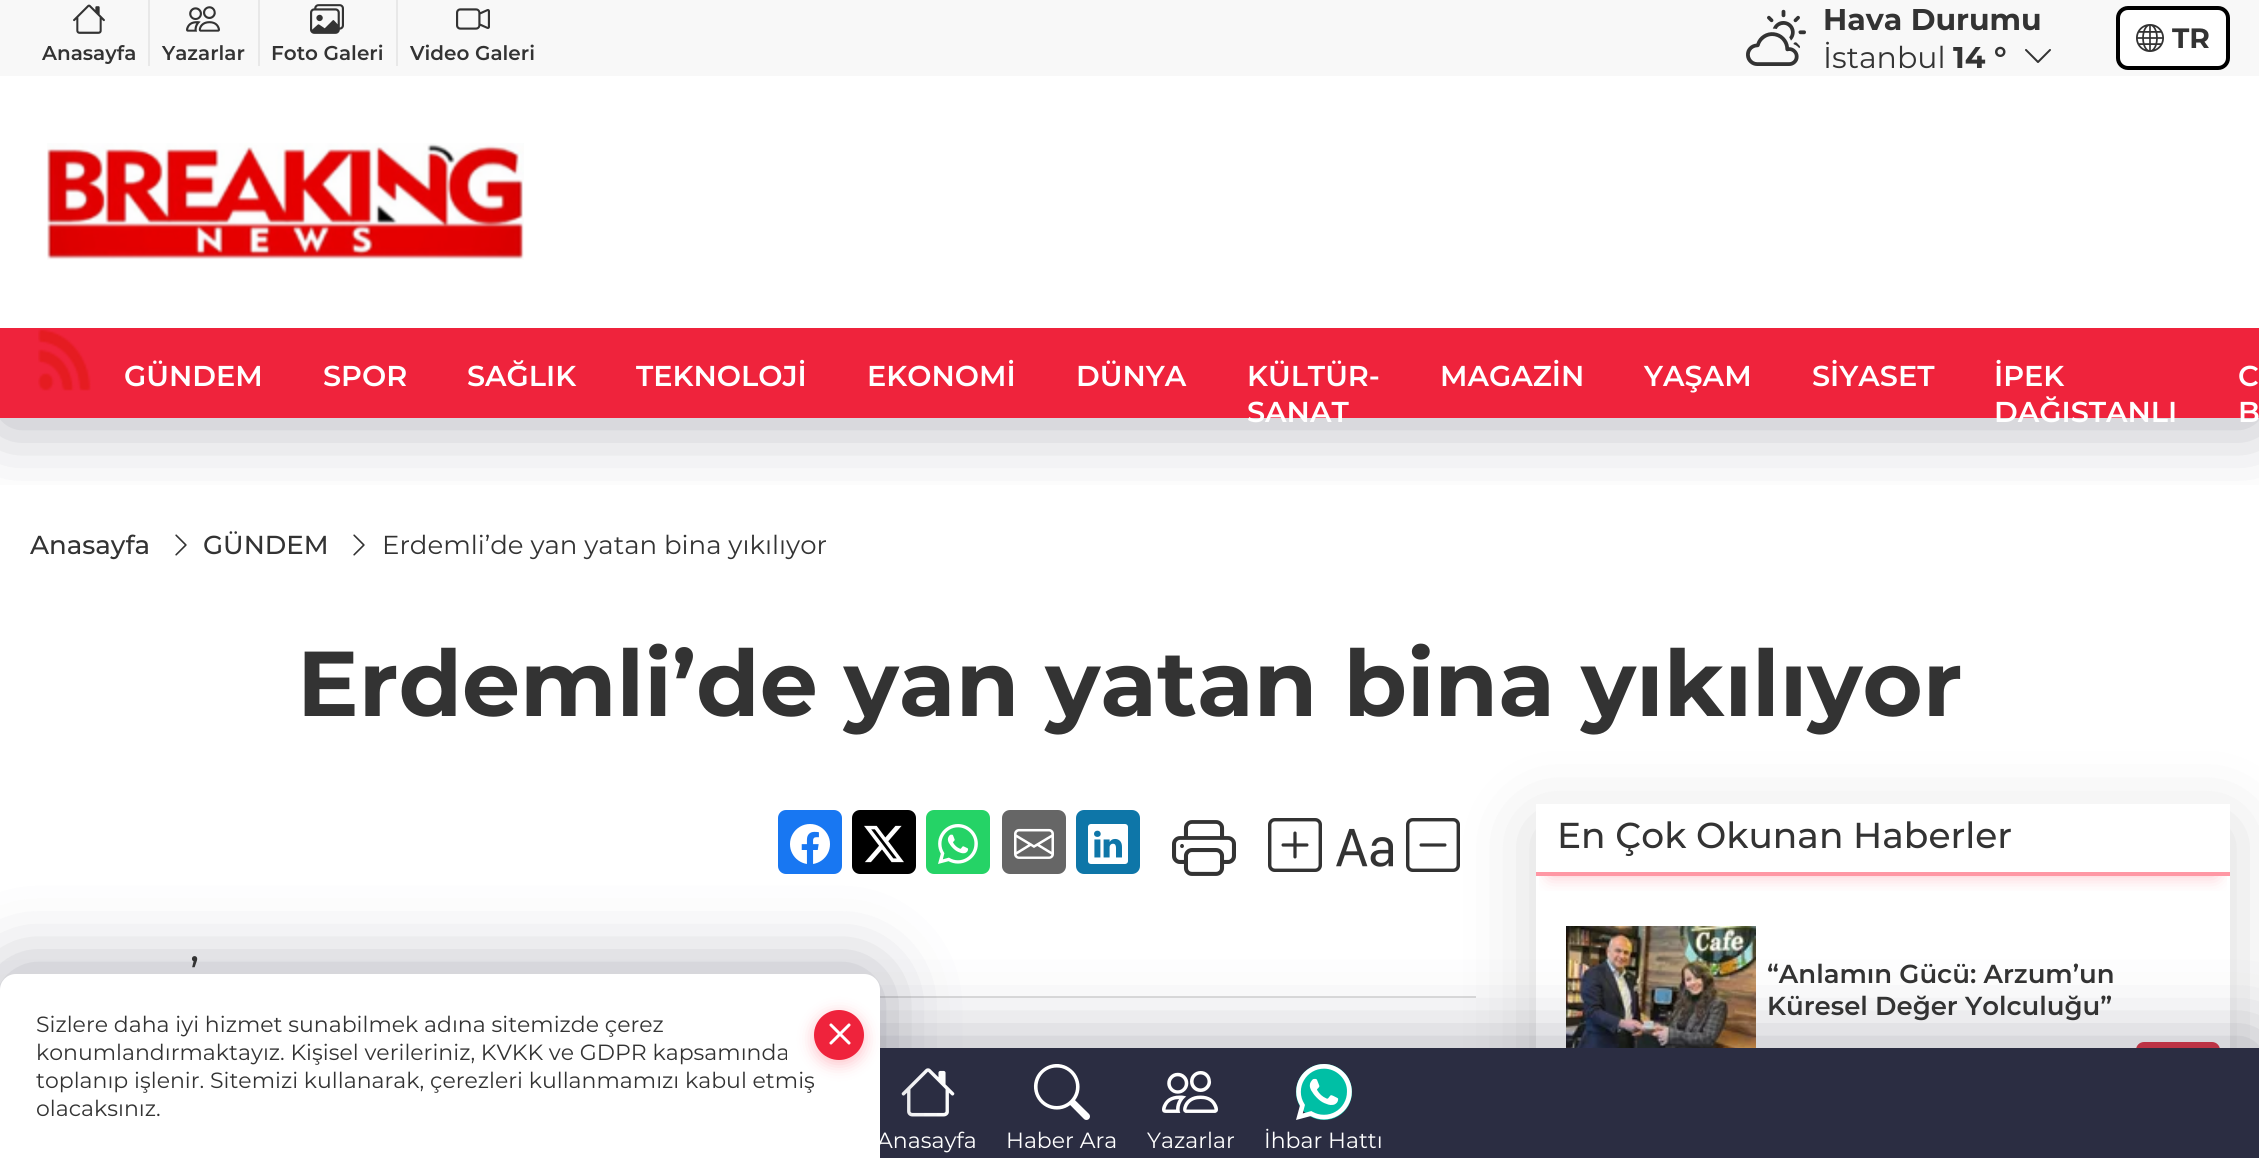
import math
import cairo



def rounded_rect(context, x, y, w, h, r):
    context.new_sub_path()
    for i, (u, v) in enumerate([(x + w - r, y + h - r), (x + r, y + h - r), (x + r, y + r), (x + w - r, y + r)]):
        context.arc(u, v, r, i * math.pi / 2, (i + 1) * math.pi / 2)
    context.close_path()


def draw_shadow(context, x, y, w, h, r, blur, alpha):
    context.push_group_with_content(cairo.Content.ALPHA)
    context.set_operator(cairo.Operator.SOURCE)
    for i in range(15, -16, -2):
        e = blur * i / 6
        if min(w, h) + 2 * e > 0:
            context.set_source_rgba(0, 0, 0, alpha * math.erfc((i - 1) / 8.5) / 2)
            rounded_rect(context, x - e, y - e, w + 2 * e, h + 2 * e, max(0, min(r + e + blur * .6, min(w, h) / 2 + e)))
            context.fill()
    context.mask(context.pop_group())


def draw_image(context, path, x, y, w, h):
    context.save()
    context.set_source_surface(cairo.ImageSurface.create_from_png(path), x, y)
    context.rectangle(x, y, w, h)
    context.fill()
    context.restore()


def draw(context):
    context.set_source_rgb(1, 1, 1)
    context.paint()
    draw_image(context, "images/10.png", 175, 534, 12, 22)
    draw_image(context, "images/10.png", 353, 534, 12, 22)
    context.save()
    context.rectangle(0, 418, 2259, 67)
    context.clip()
    context.set_source_rgb(43 / 255, 45 / 255, 66 / 255)
    draw_shadow(context, 0, 6, 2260, 418, 0, 38, 0.36)
    context.restore()
    context.set_source_rgb(248 / 255, 248 / 255, 248 / 255)
    context.rectangle(0, 0, 2259, 76)
    context.fill()
    draw_image(context, "images/1.png", 1746, 9, 60, 57)
    draw_image(context, "images/2.png", 2025, 49, 26, 14)
    context.set_source_rgb(1, 1, 1)
    rounded_rect(context, 2118, 8, 110, 60, 10)
    context.fill_preserve()
    context.set_source_rgb(0, 0, 0)
    context.set_line_width(4)
    context.stroke()
    draw_image(context, "images/3.png", 2136, 24, 28, 28)
    context.set_source_rgb(232 / 255, 232 / 255, 232 / 255)
    context.rectangle(148, 0, 2, 66)
    context.fill()
    draw_image(context, "images/4.png", 73, 4, 32, 30)
    context.rectangle(258, 0, 2, 66)
    context.fill()
    draw_image(context, "images/5.png", 186, 6, 34, 26)
    context.rectangle(396, 0, 2, 66)
    context.fill()
    draw_image(context, "images/6.png", 310, 4, 34, 30)
    draw_image(context, "images/7.png", 456, 8, 34, 22)
    draw_image(context, "images/8.png", 47, 143, 477, 117)
    context.set_source_rgb(239 / 255, 35 / 255, 60 / 255)
    context.rectangle(0, 328, 2259, 90)
    context.fill()
    draw_image(context, "images/9.png", 38, 329, 53, 62)
    context.set_source_rgb(24 / 255, 119 / 255, 242 / 255)
    rounded_rect(context, 778, 810, 64, 64, 8)
    context.fill()
    draw_image(context, "images/11.png", 790, 824, 40, 40)
    context.set_source_rgb(0, 0, 0)
    rounded_rect(context, 852, 810, 64, 64, 8)
    context.fill()
    draw_image(context, "images/12.png", 864, 825, 40, 38)
    context.set_source_rgb(37 / 255, 211 / 255, 102 / 255)
    rounded_rect(context, 926, 810, 64, 64, 8)
    context.fill()
    draw_image(context, "images/13.png", 938, 824, 40, 40)
    context.set_source_rgb(102 / 255, 102 / 255, 102 / 255)
    rounded_rect(context, 1002, 810, 64, 64, 8)
    context.fill()
    draw_image(context, "images/14.png", 1014, 828, 40, 31)
    context.set_source_rgb(14 / 255, 118 / 255, 168 / 255)
    rounded_rect(context, 1076, 810, 64, 64, 8)
    context.fill()
    draw_image(context, "images/15.png", 1088, 824, 40, 40)
    draw_image(context, "images/16.png", 1172, 820, 64, 56)
    draw_image(context, "images/17.png", 1268, 818, 54, 54)
    draw_image(context, "images/18.png", 1336, 828, 57, 39)
    draw_image(context, "images/19.png", 1406, 818, 54, 54)
    context.set_source_rgb(221 / 255, 221 / 255, 221 / 255)
    context.rectangle(880, 996, 596, 2)
    context.fill()
    context.save()
    context.set_fill_rule(cairo.FillRule.EVEN_ODD)
    context.new_path()
    context.move_to(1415, 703)
    context.line_to(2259, 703)
    context.line_to(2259, 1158)
    context.line_to(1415, 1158)
    context.close_path()
    context.move_to(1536, 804)
    context.line_to(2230, 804)
    context.line_to(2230, 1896)
    context.line_to(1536, 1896)
    context.close_path()
    context.clip()
    context.set_source_rgb(0, 0, 0)
    draw_shadow(context, 1536, 824, 694, 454, 0, 40, 0.15)
    context.restore()
    context.save()
    context.rectangle(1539, 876, 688, 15)
    context.clip()
    context.set_source_rgb(1, 86 / 255, 106 / 255)
    draw_shadow(context, 1550, 832, 666, 44, 0, 9, 0.38)
    context.restore()
    context.set_source_rgb(1, 151 / 255, 164 / 255)
    context.rectangle(1536, 872, 694, 4)
    context.fill()
    draw_image(context, "images/20.png", 1566, 926, 190, 122)
    context.set_source_rgb(220 / 255, 53 / 255, 69 / 255)
    rounded_rect(context, 2137, 1043, 82, 74, 7)
    context.fill_preserve()
    context.set_line_width(2)
    context.stroke()
    context.set_source_rgb(43 / 255, 45 / 255, 66 / 255)
    draw_shadow(context, 0, 1042, 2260, 110, 0, 38, 0.36)
    context.set_source_rgb(43 / 255, 45 / 255, 66 / 255)
    context.rectangle(880, 1048, 1379, 110)
    context.fill()
    draw_image(context, "images/21.png", 901, 1068, 54, 49)
    draw_image(context, "images/22.png", 1033, 1064, 57, 56)
    draw_image(context, "images/23.png", 1162, 1071, 56, 42)
    context.set_source_rgb(0, 191 / 255, 165 / 255)
    context.arc(1324, 1092, 28, 0, 2 * math.pi)
    context.fill()
    draw_image(context, "images/24.png", 1296, 1064, 56, 56)
    context.set_source_rgb(43 / 255, 45 / 255, 66 / 255)
    draw_shadow(context, 0, 968, 880, 184, 16, 38, 0.36)
    context.set_source_rgb(1, 1, 1)
    context.new_path()
    context.move_to(16, 974)
    context.line_to(864, 974)
    context.curve_to(873, 974, 880, 981, 880, 990)
    context.line_to(880, 1158)
    context.line_to(0, 1158)
    context.line_to(0, 990)
    context.curve_to(0, 981, 7, 974, 16, 974)
    context.close_path()
    context.fill()
    context.set_source_rgb(1, 86 / 255, 106 / 255)
    draw_shadow(context, 814, 1014, 50, 50, 25, 8, 0.38)
    context.set_source_rgb(239 / 255, 35 / 255, 60 / 255)
    context.arc(839, 1035, 25, 0, 2 * math.pi)
    context.fill()
    draw_image(context, "images/25.png", 829, 1023, 22, 22)
    context.select_font_face("Montserrat", cairo.FontSlant.NORMAL, cairo.FontWeight.BOLD)
    context.set_font_size(30)
    context.set_source_rgb(51 / 255, 51 / 255, 51 / 255)
    context.move_to(1823, 30)
    context.show_text("Hava Durumu")
    context.select_font_face("Montserrat")
    context.move_to(1823, 68)
    context.show_text("İstanbul")
    context.select_font_face("Montserrat", cairo.FontSlant.NORMAL, cairo.FontWeight.BOLD)
    context.move_to(1953, 68)
    context.show_text("14 °")
    context.set_font_size(28)
    context.move_to(2172, 48)
    context.show_text("TR")
    context.select_font_face("Montserrat SemiBold")
    context.set_font_size(20)
    context.move_to(42, 60)
    context.show_text("Anasayfa")
    context.move_to(162, 60)
    context.show_text("Yazarlar")
    context.move_to(271, 60)
    context.show_text("Foto Galeri")
    context.move_to(410, 60)
    context.show_text("Video Galeri")
    context.set_font_size(28.75)
    context.set_source_rgb(1, 1, 1)
    context.move_to(124, 386)
    context.show_text("GÜNDEM")
    context.move_to(323, 386)
    context.show_text("SPOR")
    context.move_to(467, 386)
    context.show_text("SAĞLIK")
    context.move_to(636, 386)
    context.show_text("TEKNOLOJİ")
    context.move_to(867, 386)
    context.show_text("EKONOMİ")
    context.move_to(1076, 386)
    context.show_text("DÜNYA")
    context.move_to(1247, 386)
    context.show_text("KÜLTÜR-")
    context.move_to(1247, 422)
    context.show_text("SANAT")
    context.move_to(1440, 386)
    context.show_text("MAGAZİN")
    context.move_to(1644, 386)
    context.show_text("YAŞAM")
    context.move_to(1812, 386)
    context.show_text("SİYASET")
    context.move_to(1994, 386)
    context.show_text("İPEK")
    context.move_to(1994, 422)
    context.show_text("DAĞISTANLI")
    context.move_to(2238, 386)
    context.show_text("C")
    context.move_to(2238, 422)
    context.show_text("B")
    context.select_font_face("Montserrat Medium")
    context.set_font_size(26)
    context.set_source_rgb(51 / 255, 51 / 255, 51 / 255)
    context.move_to(30, 554)
    context.show_text("Anasayfa")
    context.move_to(203, 554)
    context.show_text("GÜNDEM")
    context.select_font_face("Montserrat")
    context.move_to(382, 554)
    context.show_text("Erdemli’de yan yatan bina yıkılıyor")
    context.select_font_face("Montserrat", cairo.FontSlant.NORMAL, cairo.FontWeight.BOLD)
    context.set_font_size(92)
    context.move_to(297, 716)
    context.show_text("Erdemli’de yan yatan bina yıkılıyor")
    context.select_font_face("Montserrat Medium")
    context.set_font_size(40)
    context.move_to(190, 986)
    context.show_text("’")
    context.set_font_size(36)
    context.move_to(1557, 848)
    context.show_text("En Çok Okunan Haberler")
    context.select_font_face("Montserrat SemiBold")
    context.set_font_size(26)
    context.move_to(1767, 983)
    context.show_text("“Anlamın Gücü: Arzum’un")
    context.move_to(1767, 1015)
    context.show_text("Küresel Değer Yolculuğu”")
    context.select_font_face("Montserrat")
    context.set_font_size(22)
    context.set_source_rgb(1, 1, 1)
    context.move_to(877, 1148)
    context.show_text("Anasayfa")
    context.move_to(1006, 1148)
    context.show_text("Haber Ara")
    context.move_to(1147, 1148)
    context.show_text("Yazarlar")
    context.move_to(1264, 1148)
    context.show_text("İhbar Hattı")
    context.set_source_rgb(51 / 255, 51 / 255, 51 / 255)
    context.move_to(36, 1032)
    context.show_text("Sizlere daha iyi hizmet sunabilmek adına sitemizde çerez")
    context.move_to(36, 1060)
    context.show_text("konumlandırmaktayız. Kişisel verileriniz, KVKK ve GDPR kapsamında")
    context.move_to(36, 1088)
    context.show_text("toplanıp işlenir. Sitemizi kullanarak, çerezleri kullanmamızı kabul etmiş")
    context.move_to(36, 1116)
    context.show_text("olacaksınız.")


surface = cairo.ImageSurface(cairo.Format.RGB24, 2259, 1158)
context = cairo.Context(surface)
options = cairo.FontOptions()
options.set_hint_metrics(cairo.HintMetrics.OFF)
options.set_hint_style(cairo.HintStyle.NONE)
context.set_font_options(options)
context.set_miter_limit(4)
draw(context)
surface.write_to_png("out.png")
